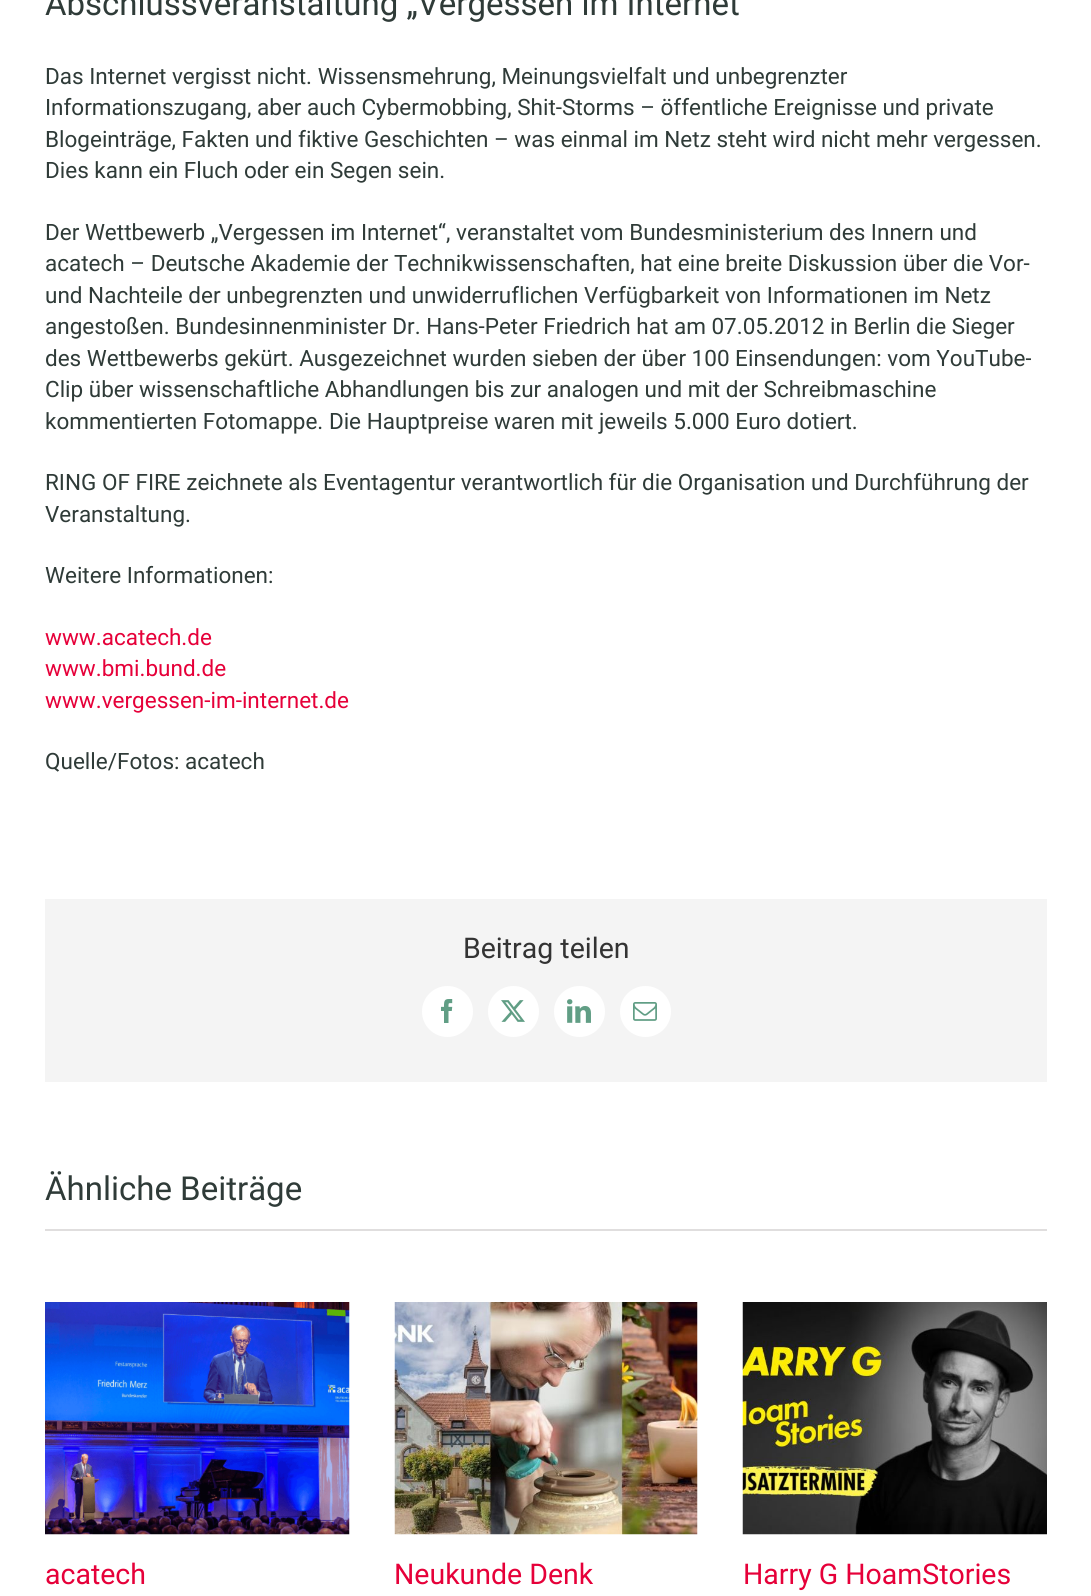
import math
import cairo



def draw_image(context, path, x, y, w, h):
    context.save()
    context.set_source_surface(cairo.ImageSurface.create_from_png(path), x, y)
    context.rectangle(x, y, w, h)
    context.fill()
    context.restore()


def draw(context):
    context.set_source_rgb(1, 1, 1)
    context.paint()
    context.set_source_rgb(244 / 255, 244 / 255, 244 / 255)
    context.rectangle(45, 899, 1002, 183)
    context.fill()
    context.set_source_rgb(1, 1, 1)
    context.arc(447.5, 1011.5, 24.5, 0, 2 * math.pi)
    context.fill_preserve()
    context.stroke()
    draw_image(context, "images/1.png", 441, 999, 12, 24)
    context.arc(513.5, 1011.5, 24.5, 0, 2 * math.pi)
    context.fill_preserve()
    context.stroke()
    draw_image(context, "images/2.png", 501, 1000, 24, 22)
    context.arc(579.5, 1011.5, 24.5, 0, 2 * math.pi)
    context.fill_preserve()
    context.stroke()
    draw_image(context, "images/3.png", 567, 999, 24, 24)
    context.arc(645.5, 1011.5, 24.5, 0, 2 * math.pi)
    context.fill_preserve()
    context.stroke()
    draw_image(context, "images/4.png", 633, 1002, 24, 19)
    context.set_source_rgb(224 / 255, 222 / 255, 222 / 255)
    context.rectangle(45, 1229, 1002, 2)
    context.fill()
    draw_image(context, "images/5.png", 45, 1302, 305, 233)
    draw_image(context, "images/6.png", 394, 1302, 304, 233)
    draw_image(context, "images/7.png", 742, 1302, 305, 233)
    context.select_font_face("Roboto")
    context.set_font_size(33)
    context.set_source_rgb(47 / 255, 59 / 255, 56 / 255)
    context.move_to(45, 15)
    context.show_text("Abschlussveranstaltung „Vergessen im Internet")
    context.set_font_size(22.5)
    context.move_to(45, 84)
    context.show_text("Das Internet vergisst nicht. Wissensmehrung, Meinungsvielfalt und unbegrenzter")
    context.move_to(45, 115)
    context.show_text("Informationszugang, aber auch Cybermobbing, Shit-Storms – öffentliche Ereignisse und private")
    context.move_to(45, 147)
    context.show_text("Blogeinträge, Fakten und fiktive Geschichten – was einmal im Netz steht wird nicht mehr vergessen.")
    context.move_to(45, 178)
    context.show_text("Dies kann ein Fluch oder ein Segen sein.")
    context.move_to(45, 240)
    context.show_text("Der Wettbewerb „Vergessen im Internet“, veranstaltet vom Bundesministerium des Innern und")
    context.move_to(45, 271)
    context.show_text("acatech – Deutsche Akademie der Technikwissenschaften, hat eine breite Diskussion über die Vor-")
    context.move_to(45, 303)
    context.show_text("und Nachteile der unbegrenzten und unwiderruflichen Verfügbarkeit von Informationen im Netz")
    context.move_to(45, 334)
    context.show_text("angestoßen. Bundesinnenminister Dr. Hans-Peter Friedrich hat am 07.05.2012 in Berlin die Sieger")
    context.move_to(45, 366)
    context.show_text("des Wettbewerbs gekürt. Ausgezeichnet wurden sieben der über 100 Einsendungen: vom YouTube-")
    context.move_to(45, 397)
    context.show_text("Clip über wissenschaftliche Abhandlungen bis zur analogen und mit der Schreibmaschine")
    context.move_to(45, 429)
    context.show_text("kommentierten Fotomappe. Die Hauptpreise waren mit jeweils 5.000 Euro dotiert.")
    context.move_to(45, 490)
    context.show_text("RING OF FIRE zeichnete als Eventagentur verantwortlich für die Organisation und Durchführung der")
    context.move_to(45, 522)
    context.show_text("Veranstaltung.")
    context.move_to(45, 583)
    context.show_text("Weitere Informationen:")
    context.set_source_rgb(230 / 255, 0, 57 / 255)
    context.move_to(45, 645)
    context.show_text("www.acatech.de")
    context.move_to(45, 676)
    context.show_text("www.bmi.bund.de")
    context.move_to(45, 708)
    context.show_text("www.vergessen-im-internet.de")
    context.set_source_rgb(47 / 255, 59 / 255, 56 / 255)
    context.move_to(45, 769)
    context.show_text("Quelle/Fotos: acatech")
    context.set_font_size(28.5)
    context.set_source_rgb(51 / 255, 51 / 255, 51 / 255)
    context.move_to(463, 958)
    context.show_text("Beitrag teilen")
    context.set_font_size(33)
    context.set_source_rgb(47 / 255, 59 / 255, 56 / 255)
    context.move_to(45, 1200)
    context.show_text("Ähnliche Beiträge")
    context.set_font_size(28.5)
    context.set_source_rgb(230 / 255, 0, 57 / 255)
    context.move_to(45, 1584)
    context.show_text("acatech")
    context.move_to(394, 1584)
    context.show_text("Neukunde Denk")
    context.move_to(743, 1584)
    context.show_text("Harry G HoamStories")


surface = cairo.ImageSurface(cairo.Format.RGB24, 1091, 1596)
context = cairo.Context(surface)
options = cairo.FontOptions()
options.set_hint_metrics(cairo.HintMetrics.OFF)
options.set_hint_style(cairo.HintStyle.NONE)
context.set_font_options(options)
context.set_miter_limit(4)
draw(context)
surface.write_to_png("out.png")
